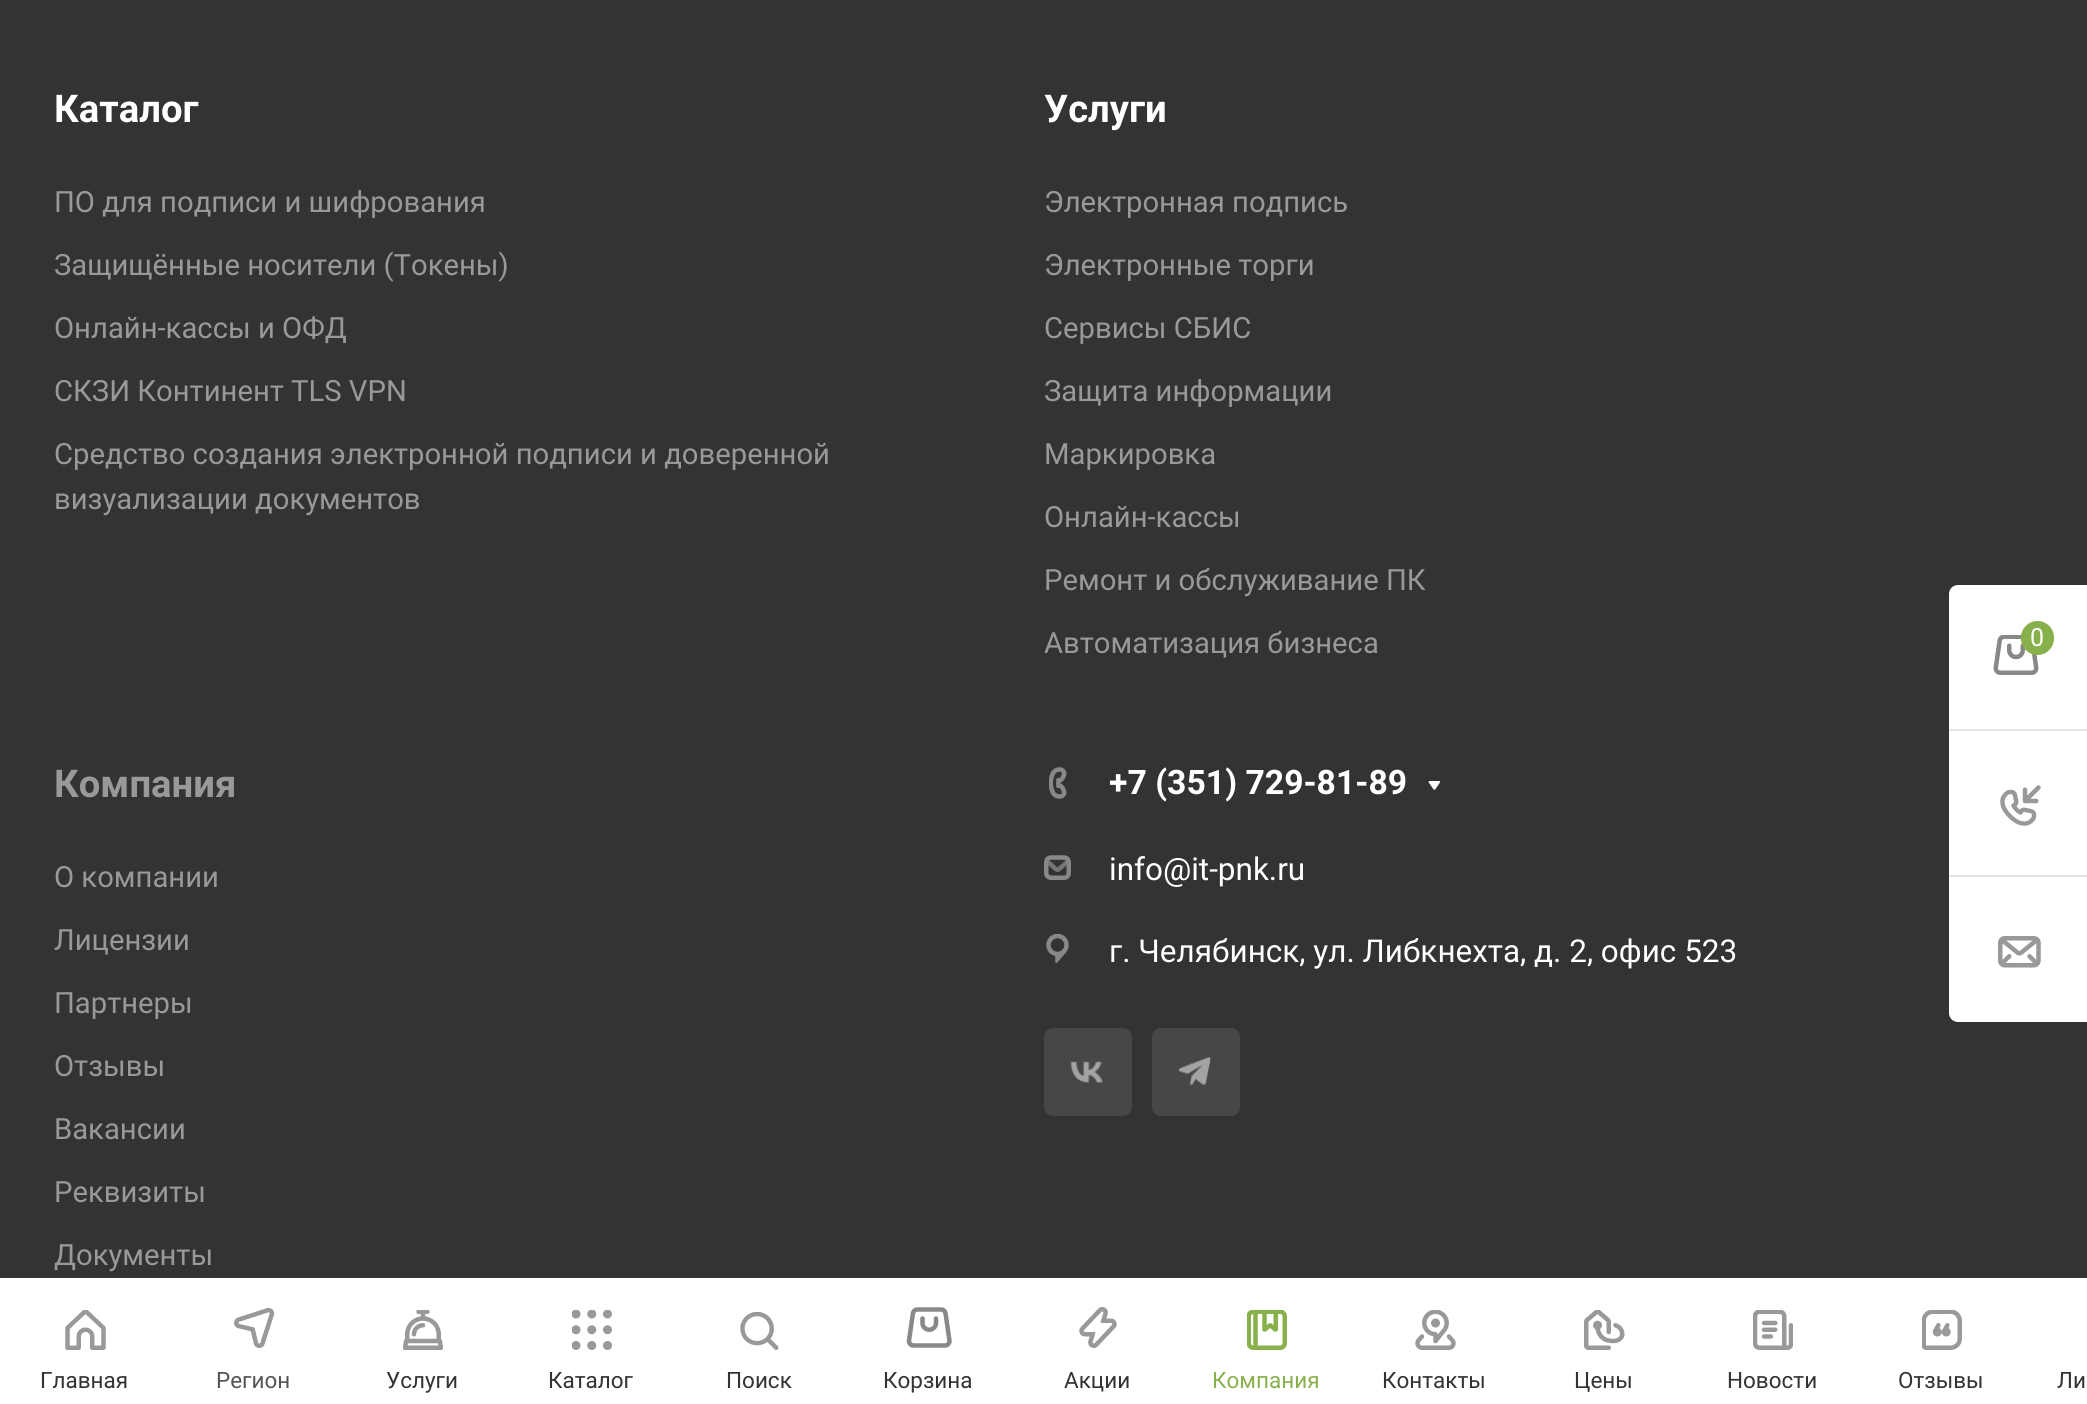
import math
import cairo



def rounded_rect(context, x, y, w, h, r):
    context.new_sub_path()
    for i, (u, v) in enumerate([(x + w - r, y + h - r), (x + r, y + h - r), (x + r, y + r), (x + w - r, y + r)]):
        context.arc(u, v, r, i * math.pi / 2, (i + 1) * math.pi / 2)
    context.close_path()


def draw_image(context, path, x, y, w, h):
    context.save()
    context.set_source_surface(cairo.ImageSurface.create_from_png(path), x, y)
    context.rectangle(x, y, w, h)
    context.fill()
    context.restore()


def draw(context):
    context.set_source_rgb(51 / 255, 51 / 255, 51 / 255)
    context.paint()
    draw_image(context, "images/1.png", 1049, 767, 18, 32)
    draw_image(context, "images/2.png", 1428, 781, 13, 9)
    draw_image(context, "images/3.png", 1044, 855, 27, 25)
    draw_image(context, "images/4.png", 1046, 934, 23, 29)
    context.set_source_rgb(71 / 255, 71 / 255, 71 / 255)
    rounded_rect(context, 1044, 1028, 88, 88, 9)
    context.fill()
    draw_image(context, "images/5.png", 1070, 1061, 33, 22)
    rounded_rect(context, 1152, 1028, 88, 88, 9)
    context.fill()
    draw_image(context, "images/6.png", 1178, 1057, 33, 29)
    context.set_source_rgb(1, 1, 1)
    context.new_path()
    context.move_to(1958, 585)
    context.line_to(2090, 585)
    context.line_to(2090, 1022)
    context.line_to(1958, 1022)
    context.curve_to(1953, 1022, 1949, 1018, 1949, 1013)
    context.line_to(1949, 594)
    context.curve_to(1949, 589, 1953, 585, 1958, 585)
    context.close_path()
    context.fill()
    draw_image(context, "images/7.png", 1993, 635, 46, 40)
    context.set_source_rgb(136 / 255, 176 / 255, 75 / 255)
    rounded_rect(context, 2021, 621, 33, 34, 16.5)
    context.fill()
    context.set_source_rgb(229 / 255, 229 / 255, 229 / 255)
    context.rectangle(1949, 729, 138, 2)
    context.fill()
    draw_image(context, "images/8.png", 2000, 785, 41, 41)
    context.rectangle(1949, 875, 138, 2)
    context.fill()
    draw_image(context, "images/9.png", 1998, 936, 43, 32)
    context.set_source_rgb(1, 1, 1)
    context.rectangle(0, 1278, 2087, 126)
    context.fill()
    draw_image(context, "images/10.png", 65, 1310, 41, 40)
    draw_image(context, "images/11.png", 234, 1307, 41, 41)
    draw_image(context, "images/12.png", 403, 1310, 40, 40)
    draw_image(context, "images/13.png", 572, 1310, 40, 40)
    draw_image(context, "images/14.png", 740, 1312, 39, 38)
    draw_image(context, "images/15.png", 906, 1307, 46, 41)
    draw_image(context, "images/16.png", 1079, 1307, 38, 41)
    draw_image(context, "images/17.png", 1247, 1310, 40, 40)
    draw_image(context, "images/18.png", 1415, 1310, 41, 40)
    draw_image(context, "images/19.png", 1584, 1310, 41, 40)
    draw_image(context, "images/20.png", 1753, 1310, 40, 40)
    draw_image(context, "images/21.png", 1922, 1310, 40, 40)
    context.select_font_face("Roboto", cairo.FontSlant.NORMAL, cairo.FontWeight.BOLD)
    context.set_font_size(38.25)
    context.move_to(54, 122)
    context.show_text("Каталог")
    context.select_font_face("Roboto")
    context.set_font_size(29.25)
    context.set_source_rgb(153 / 255, 153 / 255, 153 / 255)
    context.move_to(54, 212)
    context.show_text("ПО для подписи и шифрования")
    context.move_to(54, 275)
    context.show_text("Защищённые носители (Токены)")
    context.move_to(54, 338)
    context.show_text("Онлайн-кассы и ОФД")
    context.move_to(54, 401)
    context.show_text("СКЗИ Континент TLS VPN")
    context.move_to(54, 464)
    context.show_text("Средство создания электронной подписи и доверенной")
    context.move_to(54, 509)
    context.show_text("визуализации документов")
    context.select_font_face("Roboto", cairo.FontSlant.NORMAL, cairo.FontWeight.BOLD)
    context.set_font_size(38.25)
    context.set_source_rgb(1, 1, 1)
    context.move_to(1044, 122)
    context.show_text("Услуги")
    context.select_font_face("Roboto")
    context.set_font_size(29.25)
    context.set_source_rgb(153 / 255, 153 / 255, 153 / 255)
    context.move_to(1044, 212)
    context.show_text("Электронная подпись")
    context.move_to(1044, 275)
    context.show_text("Электронные торги")
    context.move_to(1044, 338)
    context.show_text("Сервисы СБИС")
    context.move_to(1044, 401)
    context.show_text("Защита информации")
    context.move_to(1044, 464)
    context.show_text("Маркировка")
    context.move_to(1044, 527)
    context.show_text("Онлайн-кассы")
    context.move_to(1044, 590)
    context.show_text("Ремонт и обслуживание ПК")
    context.move_to(1044, 653)
    context.show_text("Автоматизация бизнеса")
    context.select_font_face("Roboto", cairo.FontSlant.NORMAL, cairo.FontWeight.BOLD)
    context.set_font_size(38.25)
    context.move_to(54, 797)
    context.show_text("Компания")
    context.select_font_face("Roboto")
    context.set_font_size(29.25)
    context.move_to(54, 887)
    context.show_text("О компании")
    context.move_to(54, 950)
    context.show_text("Лицензии")
    context.move_to(54, 1013)
    context.show_text("Партнеры")
    context.move_to(54, 1076)
    context.show_text("Отзывы")
    context.move_to(54, 1139)
    context.show_text("Вакансии")
    context.move_to(54, 1202)
    context.show_text("Реквизиты")
    context.move_to(54, 1265)
    context.show_text("Документы")
    context.select_font_face("Roboto", cairo.FontSlant.NORMAL, cairo.FontWeight.BOLD)
    context.set_font_size(33.75)
    context.set_source_rgb(1, 1, 1)
    context.move_to(1109, 794)
    context.show_text("+7 (351) 729-81-89")
    context.select_font_face("Roboto")
    context.set_font_size(31.5)
    context.move_to(1109, 880)
    context.show_text("info@it-pnk.ru")
    context.move_to(1109, 962)
    context.show_text("г. Челябинск, ул. Либкнехта, д. 2, офис 523")
    context.set_font_size(25)
    context.move_to(2030, 646)
    context.show_text("0")
    context.set_font_size(22.5)
    context.set_source_rgb(51 / 255, 51 / 255, 51 / 255)
    context.move_to(40, 1388)
    context.show_text("Главная")
    context.set_source_rgb(85 / 255, 85 / 255, 85 / 255)
    context.move_to(216, 1388)
    context.show_text("Регион")
    context.set_source_rgb(51 / 255, 51 / 255, 51 / 255)
    context.move_to(386, 1388)
    context.show_text("Услуги")
    context.move_to(548, 1388)
    context.show_text("Каталог")
    context.move_to(726, 1388)
    context.show_text("Поиск")
    context.move_to(883, 1388)
    context.show_text("Корзина")
    context.move_to(1064, 1388)
    context.show_text("Акции")
    context.set_source_rgb(136 / 255, 176 / 255, 75 / 255)
    context.move_to(1212, 1388)
    context.show_text("Компания")
    context.set_source_rgb(51 / 255, 51 / 255, 51 / 255)
    context.move_to(1382, 1388)
    context.show_text("Контакты")
    context.move_to(1574, 1388)
    context.show_text("Цены")
    context.move_to(1727, 1388)
    context.show_text("Новости")
    context.move_to(1898, 1388)
    context.show_text("Отзывы")
    context.move_to(2057, 1388)
    context.show_text("Ли")


surface = cairo.ImageSurface(cairo.Format.RGB24, 2087, 1404)
context = cairo.Context(surface)
options = cairo.FontOptions()
options.set_hint_metrics(cairo.HintMetrics.OFF)
options.set_hint_style(cairo.HintStyle.NONE)
context.set_font_options(options)
context.set_miter_limit(4)
draw(context)
surface.write_to_png("out.png")
